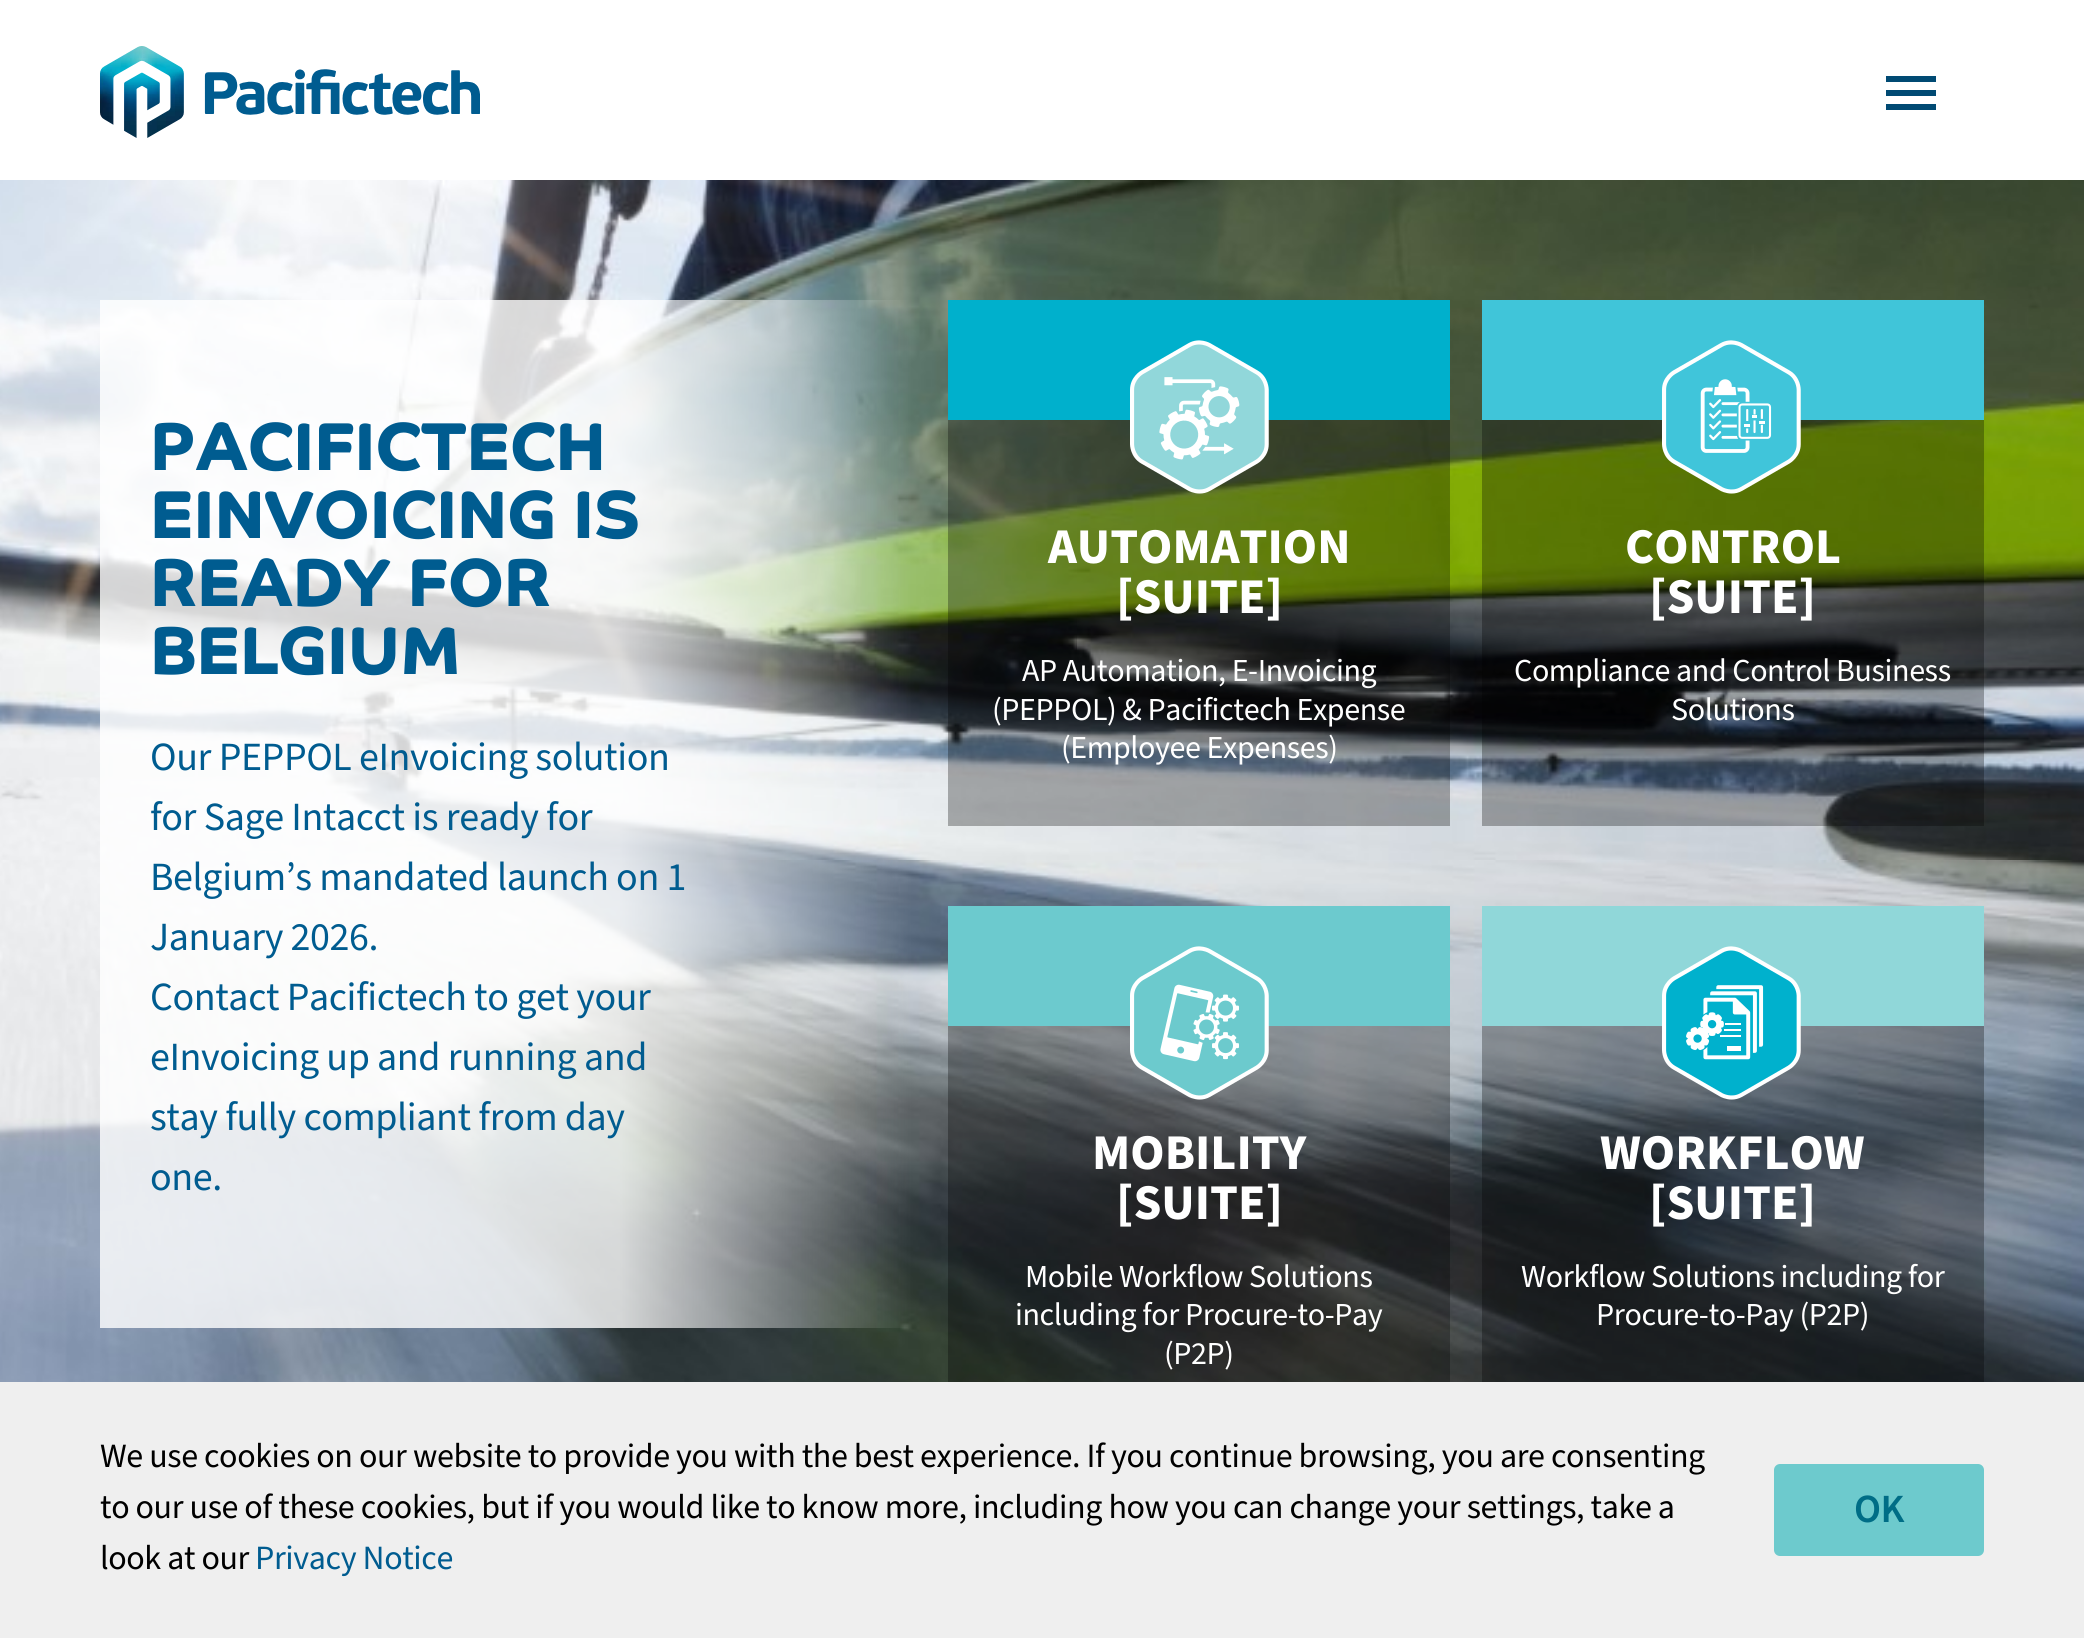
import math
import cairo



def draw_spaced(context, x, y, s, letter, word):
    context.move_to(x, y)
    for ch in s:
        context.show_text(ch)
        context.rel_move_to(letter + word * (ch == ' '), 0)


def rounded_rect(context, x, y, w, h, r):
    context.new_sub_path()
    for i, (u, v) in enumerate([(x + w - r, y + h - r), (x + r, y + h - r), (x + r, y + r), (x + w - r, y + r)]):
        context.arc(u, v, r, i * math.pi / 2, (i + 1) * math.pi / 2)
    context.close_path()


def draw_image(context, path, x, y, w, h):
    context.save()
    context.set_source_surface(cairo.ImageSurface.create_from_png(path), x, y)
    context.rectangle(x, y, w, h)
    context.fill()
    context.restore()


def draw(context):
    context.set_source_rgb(1, 1, 1)
    context.paint()
    draw_image(context, "images/1.png", 100, 46, 380, 92)
    context.set_source_rgb(0, 74 / 255, 115 / 255)
    context.new_path()
    context.move_to(1886, 76)
    context.line_to(1936, 76)
    context.line_to(1936, 82)
    context.line_to(1886, 82)
    context.close_path()
    context.move_to(1886, 96)
    context.line_to(1886, 90)
    context.line_to(1936, 90)
    context.line_to(1936, 96)
    context.close_path()
    context.move_to(1886, 110)
    context.line_to(1886, 104)
    context.line_to(1936, 104)
    context.line_to(1936, 110)
    context.close_path()
    context.fill()
    draw_image(context, "images/2.png", 0, 180, 2084, 1202)
    context.set_source_rgba(0, 0, 0, 0.3)
    context.rectangle(948, 420, 502, 406)
    context.fill()
    context.set_source_rgb(0, 176 / 255, 204 / 255)
    context.rectangle(948, 300, 502, 120)
    context.fill()
    draw_image(context, "images/3.png", 1130, 340, 139, 154)
    context.set_source_rgba(0, 0, 0, 0.3)
    context.rectangle(1482, 420, 502, 406)
    context.fill()
    context.set_source_rgb(64 / 255, 197 / 255, 217 / 255)
    context.rectangle(1482, 300, 502, 120)
    context.fill()
    draw_image(context, "images/4.png", 1662, 340, 139, 154)
    context.set_source_rgba(0, 0, 0, 0.3)
    context.rectangle(948, 1026, 502, 356)
    context.fill()
    context.set_source_rgb(108 / 255, 202 / 255, 206 / 255)
    context.rectangle(948, 906, 502, 120)
    context.fill()
    draw_image(context, "images/5.png", 1130, 946, 139, 154)
    context.set_source_rgba(0, 0, 0, 0.3)
    context.rectangle(1482, 1026, 502, 356)
    context.fill()
    context.set_source_rgb(144 / 255, 215 / 255, 217 / 255)
    context.rectangle(1482, 906, 502, 120)
    context.fill()
    draw_image(context, "images/6.png", 1662, 946, 139, 154)
    context.set_source_rgb(239 / 255, 239 / 255, 239 / 255)
    context.rectangle(0, 1382, 2084, 256)
    context.fill()
    context.set_source_rgb(109 / 255, 202 / 255, 205 / 255)
    rounded_rect(context, 1774, 1464, 210, 92, 6)
    context.fill()
    context.select_font_face("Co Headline", cairo.FontSlant.NORMAL, cairo.FontWeight.BOLD)
    context.set_font_size(68)
    context.set_source_rgb(0, 92 / 255, 144 / 255)
    context.move_to(150, 470)
    context.show_text("PACIFICTECH")
    context.move_to(150, 538)
    context.show_text("EINVOICING IS")
    context.move_to(150, 606)
    context.show_text("READY FOR")
    context.move_to(150, 674)
    context.show_text("BELGIUM")
    context.select_font_face("Source Sans Pro")
    context.set_font_size(40)
    draw_spaced(context, 150, 770, "Our PEPPOL eInvoicing solution", -0.4, 0)
    draw_spaced(context, 150, 830, "for Sage Intacct is ready for", -0.4, 0)
    draw_spaced(context, 150, 890, "Belgium’s mandated launch on 1", -0.4, 0)
    draw_spaced(context, 150, 950, "January 2026.", -0.4, 0)
    draw_spaced(context, 150, 1010, "Contact Pacifictech to get your", -0.4, 0)
    draw_spaced(context, 150, 1070, "eInvoicing up and running and", -0.4, 0)
    draw_spaced(context, 150, 1130, "stay fully compliant from day", -0.4, 0)
    draw_spaced(context, 150, 1190, "one.", -0.4, 0)
    context.select_font_face("Source Sans Pro", cairo.FontSlant.NORMAL, cairo.FontWeight.BOLD)
    context.set_font_size(50)
    context.set_source_rgb(1, 1, 1)
    context.move_to(1048, 563)
    context.show_text("AUTOMATION")
    context.move_to(1116, 613)
    context.show_text("[SUITE]")
    context.select_font_face("Source Sans Pro")
    context.set_font_size(32)
    draw_spaced(context, 1022, 681, "AP Automation, E-Invoicing", -0.4, 0)
    draw_spaced(context, 992, 720, "(PEPPOL) & Pacifictech Expense", -0.4, 0)
    draw_spaced(context, 1061, 758, "(Employee Expenses)", -0.4, 0)
    context.select_font_face("Source Sans Pro", cairo.FontSlant.NORMAL, cairo.FontWeight.BOLD)
    context.set_font_size(50)
    context.move_to(1625, 563)
    context.show_text("CONTROL")
    context.move_to(1649, 613)
    context.show_text("[SUITE]")
    context.select_font_face("Source Sans Pro")
    context.set_font_size(32)
    draw_spaced(context, 1514, 681, "Compliance and Control Business", -0.4, 0)
    draw_spaced(context, 1671, 720, "Solutions", -0.4, 0)
    context.select_font_face("Source Sans Pro", cairo.FontSlant.NORMAL, cairo.FontWeight.BOLD)
    context.set_font_size(50)
    context.move_to(1092, 1169)
    context.show_text("MOBILITY")
    context.move_to(1116, 1219)
    context.show_text("[SUITE]")
    context.select_font_face("Source Sans Pro")
    context.set_font_size(32)
    draw_spaced(context, 1025, 1287, "Mobile Workflow Solutions", -0.4, 0)
    draw_spaced(context, 1015, 1325, "including for Procure-to-Pay", -0.4, 0)
    draw_spaced(context, 1164, 1364, "(P2P)", -0.4, 0)
    context.select_font_face("Source Sans Pro", cairo.FontSlant.NORMAL, cairo.FontWeight.BOLD)
    context.set_font_size(50)
    context.move_to(1600, 1169)
    context.show_text("WORKFLOW")
    context.move_to(1649, 1219)
    context.show_text("[SUITE]")
    context.select_font_face("Source Sans Pro")
    context.set_font_size(32)
    draw_spaced(context, 1521, 1287, "Workflow Solutions including for", -0.4, 0)
    draw_spaced(context, 1596, 1325, "Procure-to-Pay (P2P)", -0.4, 0)
    context.set_font_size(34)
    context.set_source_rgb(0, 0, 0)
    draw_spaced(context, 100, 1467, "We use cookies on our website to provide you with the best experience. If you continue browsing, you are consenting", -0.4, 0)
    draw_spaced(context, 100, 1518, "to our use of these cookies, but if you would like to know more, including how you can change your settings, take a", -0.4, 0)
    draw_spaced(context, 100, 1569, "look at our", -0.4, 0)
    context.set_source_rgb(0, 92 / 255, 144 / 255)
    draw_spaced(context, 255, 1569, "Privacy Notice", -0.4, 0)
    context.select_font_face("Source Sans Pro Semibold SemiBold")
    context.set_font_size(40)
    context.set_source_rgb(0, 109 / 255, 134 / 255)
    draw_spaced(context, 1854, 1522, "OK", -0.4, 0)


surface = cairo.ImageSurface(cairo.Format.RGB24, 2084, 1638)
context = cairo.Context(surface)
options = cairo.FontOptions()
options.set_hint_metrics(cairo.HintMetrics.OFF)
options.set_hint_style(cairo.HintStyle.NONE)
context.set_font_options(options)
context.set_miter_limit(4)
draw(context)
surface.write_to_png("out.png")
